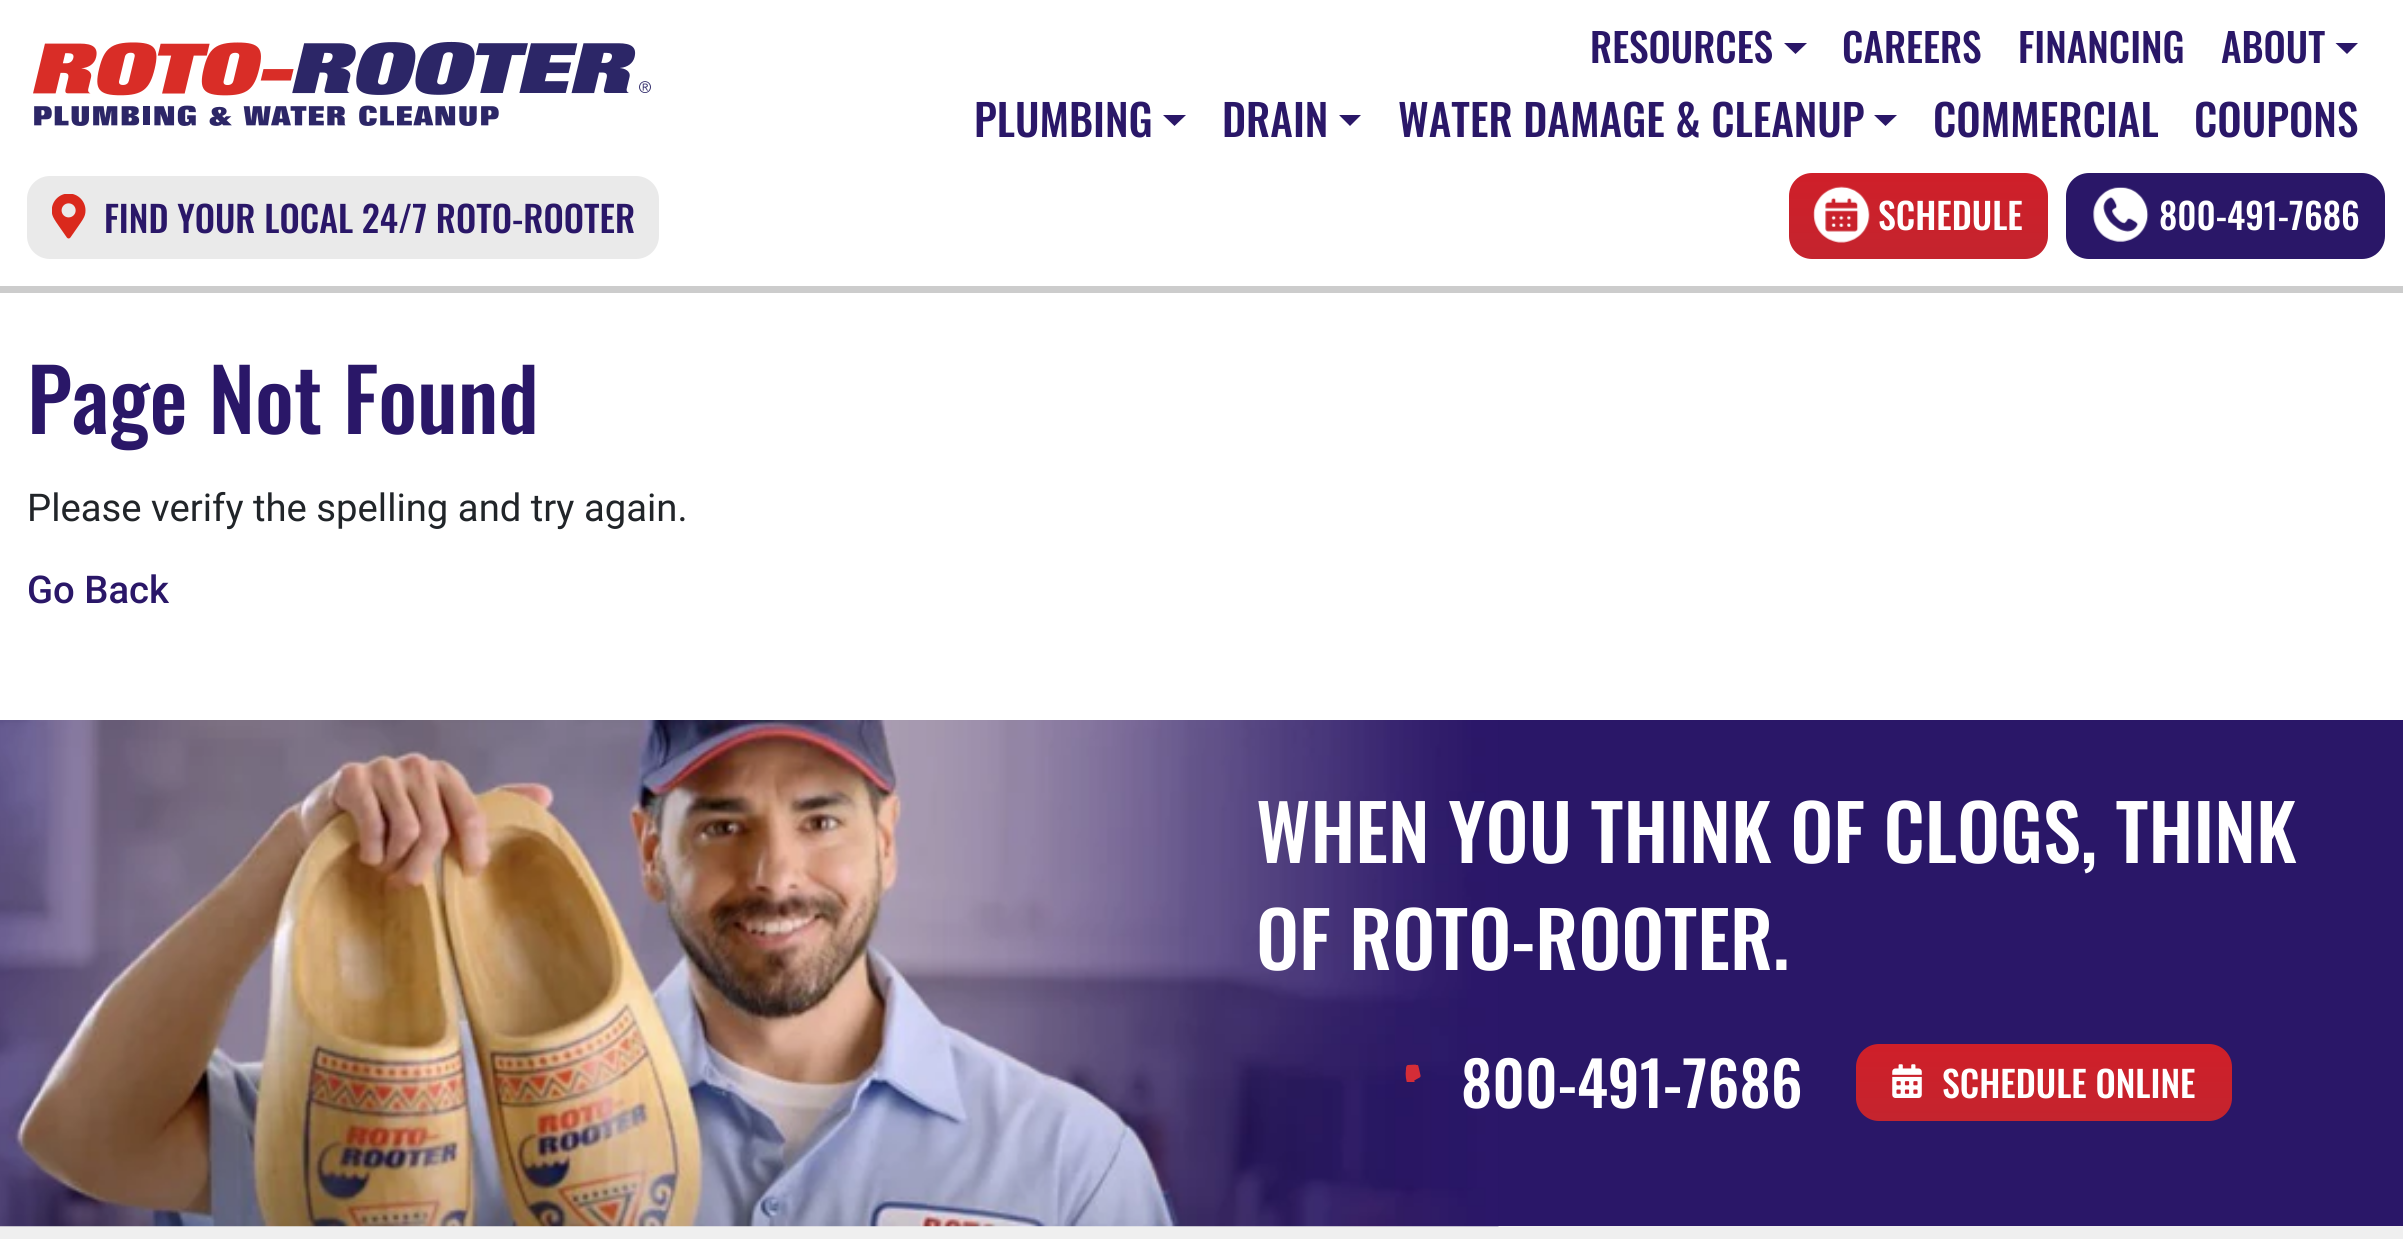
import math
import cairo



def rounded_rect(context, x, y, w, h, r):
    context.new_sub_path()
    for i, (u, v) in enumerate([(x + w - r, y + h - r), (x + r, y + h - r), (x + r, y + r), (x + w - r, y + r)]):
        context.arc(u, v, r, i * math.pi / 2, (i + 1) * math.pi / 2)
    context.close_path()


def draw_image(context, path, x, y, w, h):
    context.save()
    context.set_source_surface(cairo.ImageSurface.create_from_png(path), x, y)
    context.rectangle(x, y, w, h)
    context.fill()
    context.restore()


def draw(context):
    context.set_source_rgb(1, 1, 1)
    context.paint()
    draw_image(context, "images/1.png", 33, 41, 618, 85)
    context.set_source_rgb(42 / 255, 23 / 255, 104 / 255)
    context.new_path()
    context.move_to(1784, 43)
    context.line_to(1807, 43)
    context.line_to(1795.5, 54)
    context.close_path()
    context.fill()
    context.new_path()
    context.move_to(2335.5, 43)
    context.line_to(2358, 43)
    context.line_to(2347, 54)
    context.close_path()
    context.fill()
    context.new_path()
    context.move_to(1163, 115)
    context.line_to(1186, 115)
    context.line_to(1174.5, 126)
    context.close_path()
    context.fill()
    context.new_path()
    context.move_to(1339, 115)
    context.line_to(1361, 115)
    context.line_to(1350, 126)
    context.close_path()
    context.fill()
    context.new_path()
    context.move_to(1874, 115)
    context.line_to(1897, 115)
    context.line_to(1885.5, 126)
    context.close_path()
    context.fill()
    context.set_source_rgb(204 / 255, 204 / 255, 204 / 255)
    context.rectangle(0, 286, 2403, 7)
    context.fill()
    context.set_source_rgb(234 / 255, 234 / 255, 234 / 255)
    rounded_rect(context, 27, 176, 632, 83, 23)
    context.fill()
    draw_image(context, "images/2.png", 52, 194, 34, 45)
    gradient = cairo.LinearGradient(1918, 173, 1918, 259)
    gradient.add_color_stop_rgba(0, 207 / 255, 31 / 255, 41 / 255, 1)
    gradient.add_color_stop_rgba(1, 196 / 255, 36 / 255, 46 / 255, 1)
    context.set_source(gradient)
    rounded_rect(context, 1789, 173, 259, 86, 23)
    context.fill()
    draw_image(context, "images/3.png", 1813, 186, 57, 57)
    context.set_source_rgb(42 / 255, 23 / 255, 104 / 255)
    rounded_rect(context, 2066, 173, 319, 86, 23)
    context.fill()
    draw_image(context, "images/4.png", 2093, 187, 56, 55)
    context.rectangle(1498, 720, 905, 506)
    context.fill()
    context.set_source_rgb(239 / 255, 239 / 255, 239 / 255)
    context.rectangle(0, 1226, 2403, 13)
    context.fill()
    draw_image(context, "images/5.png", 0, 720, 1499, 507)
    draw_image(context, "images/6.png", 1405, 1064, 16, 18)
    gradient = cairo.LinearGradient(2044, 1044, 2044, 1121)
    gradient.add_color_stop_rgba(0, 207 / 255, 31 / 255, 41 / 255, 1)
    gradient.add_color_stop_rgba(1, 196 / 255, 36 / 255, 46 / 255, 1)
    context.set_source(gradient)
    rounded_rect(context, 1856, 1044, 376, 77, 23)
    context.fill()
    draw_image(context, "images/7.png", 1892, 1064, 30, 34)
    context.select_font_face("Oswald Medium")
    context.set_font_size(39.5)
    context.set_source_rgb(42 / 255, 23 / 255, 104 / 255)
    context.move_to(1590, 63)
    context.show_text("RESOURCES")
    context.move_to(1842, 63)
    context.show_text("CAREERS")
    context.move_to(2018, 63)
    context.show_text("FINANCING")
    context.move_to(2221, 63)
    context.show_text("ABOUT")
    context.set_font_size(43.25)
    context.move_to(974, 137)
    context.show_text("PLUMBING")
    context.move_to(1222, 137)
    context.show_text("DRAIN")
    context.move_to(1398, 137)
    context.show_text("WATER DAMAGE & CLEANUP")
    context.move_to(1933, 137)
    context.show_text("COMMERCIAL")
    context.move_to(2194, 137)
    context.show_text("COUPONS")
    context.set_font_size(36)
    context.move_to(104, 233)
    context.show_text("FIND YOUR LOCAL 24/7 ROTO-ROOTER")
    context.set_source_rgb(1, 1, 1)
    context.move_to(1878, 230)
    context.show_text("SCHEDULE")
    context.move_to(2159, 230)
    context.show_text("800-491-7686")
    context.set_font_size(85.5)
    context.set_source_rgb(42 / 255, 23 / 255, 104 / 255)
    context.move_to(27, 434)
    context.show_text("Page Not Found")
    context.select_font_face("Roboto")
    context.set_font_size(38.25)
    context.set_source_rgb(33 / 255, 37 / 255, 41 / 255)
    context.move_to(27, 521)
    context.show_text("Please verify the spelling and try again.")
    context.select_font_face("Roboto Medium")
    context.set_source_rgb(42 / 255, 23 / 255, 104 / 255)
    context.move_to(27, 603)
    context.show_text("Go Back")
    context.select_font_face("Oswald Medium")
    context.set_font_size(76.5)
    context.set_source_rgb(1, 1, 1)
    context.move_to(1256, 863)
    context.show_text("WHEN YOU THINK OF CLOGS, THINK")
    context.move_to(1256, 970)
    context.show_text("OF ROTO-ROOTER.")
    context.set_font_size(61.25)
    context.move_to(1461, 1108)
    context.show_text("800-491-7686")
    context.set_font_size(36)
    context.move_to(1942, 1098)
    context.show_text("SCHEDULE ONLINE")


surface = cairo.ImageSurface(cairo.Format.RGB24, 2403, 1239)
context = cairo.Context(surface)
options = cairo.FontOptions()
options.set_hint_metrics(cairo.HintMetrics.OFF)
options.set_hint_style(cairo.HintStyle.NONE)
context.set_font_options(options)
context.set_miter_limit(4)
draw(context)
surface.write_to_png("out.png")
